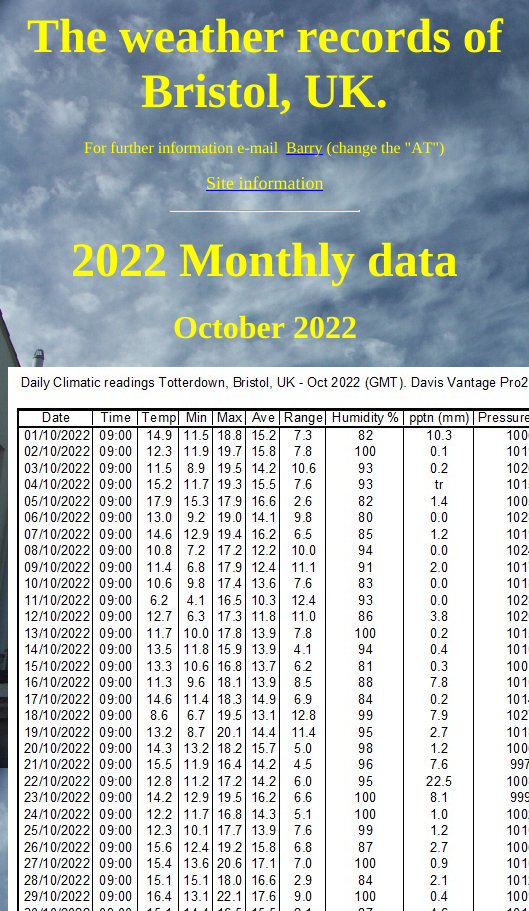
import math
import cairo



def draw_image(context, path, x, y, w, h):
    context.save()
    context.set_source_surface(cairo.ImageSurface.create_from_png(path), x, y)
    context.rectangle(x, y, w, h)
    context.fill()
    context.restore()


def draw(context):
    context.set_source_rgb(1, 1, 1)
    context.paint()
    draw_image(context, "images/1.png", 0, 0, 529, 911)
    context.set_source_rgb(0, 0, 1)
    context.rectangle(286, 154, 37, 1)
    context.fill()
    context.rectangle(206, 190, 117, 1)
    context.fill()
    context.set_source_rgb(159 / 255, 159 / 255, 159 / 255)
    context.rectangle(169, 210, 191, 1)
    context.fill()
    context.set_source_rgb(238 / 255, 238 / 255, 238 / 255)
    context.rectangle(359, 210, 1, 2)
    context.fill()
    context.rectangle(169, 211, 191, 1)
    context.fill()
    context.set_source_rgb(159 / 255, 159 / 255, 159 / 255)
    context.rectangle(169, 210, 1, 2)
    context.fill()
    draw_image(context, "images/2.png", 8, 367, 521, 544)
    context.select_font_face("Liberation Serif", cairo.FontSlant.NORMAL, cairo.FontWeight.BOLD)
    context.set_font_size(48)
    context.set_source_rgb(1, 1, 0)
    context.move_to(27, 52)
    context.show_text("The weather records of")
    context.move_to(141, 107)
    context.show_text("Bristol, UK.")
    context.select_font_face("Liberation Serif")
    context.set_font_size(16)
    context.move_to(84, 153)
    context.show_text("For further information e-mail")
    context.move_to(286, 153)
    context.show_text("Barry (change the \"AT\")")
    context.set_font_size(18)
    context.move_to(206, 189)
    context.show_text("Site information")
    context.select_font_face("Liberation Serif", cairo.FontSlant.NORMAL, cairo.FontWeight.BOLD)
    context.set_font_size(48)
    context.move_to(71, 276)
    context.show_text("2022 Monthly data")
    context.set_font_size(32)
    context.move_to(173, 338)
    context.show_text("October 2022")


surface = cairo.ImageSurface(cairo.Format.RGB24, 529, 911)
context = cairo.Context(surface)
options = cairo.FontOptions()
options.set_hint_metrics(cairo.HintMetrics.OFF)
options.set_hint_style(cairo.HintStyle.NONE)
context.set_font_options(options)
context.set_miter_limit(4)
draw(context)
surface.write_to_png("out.png")
